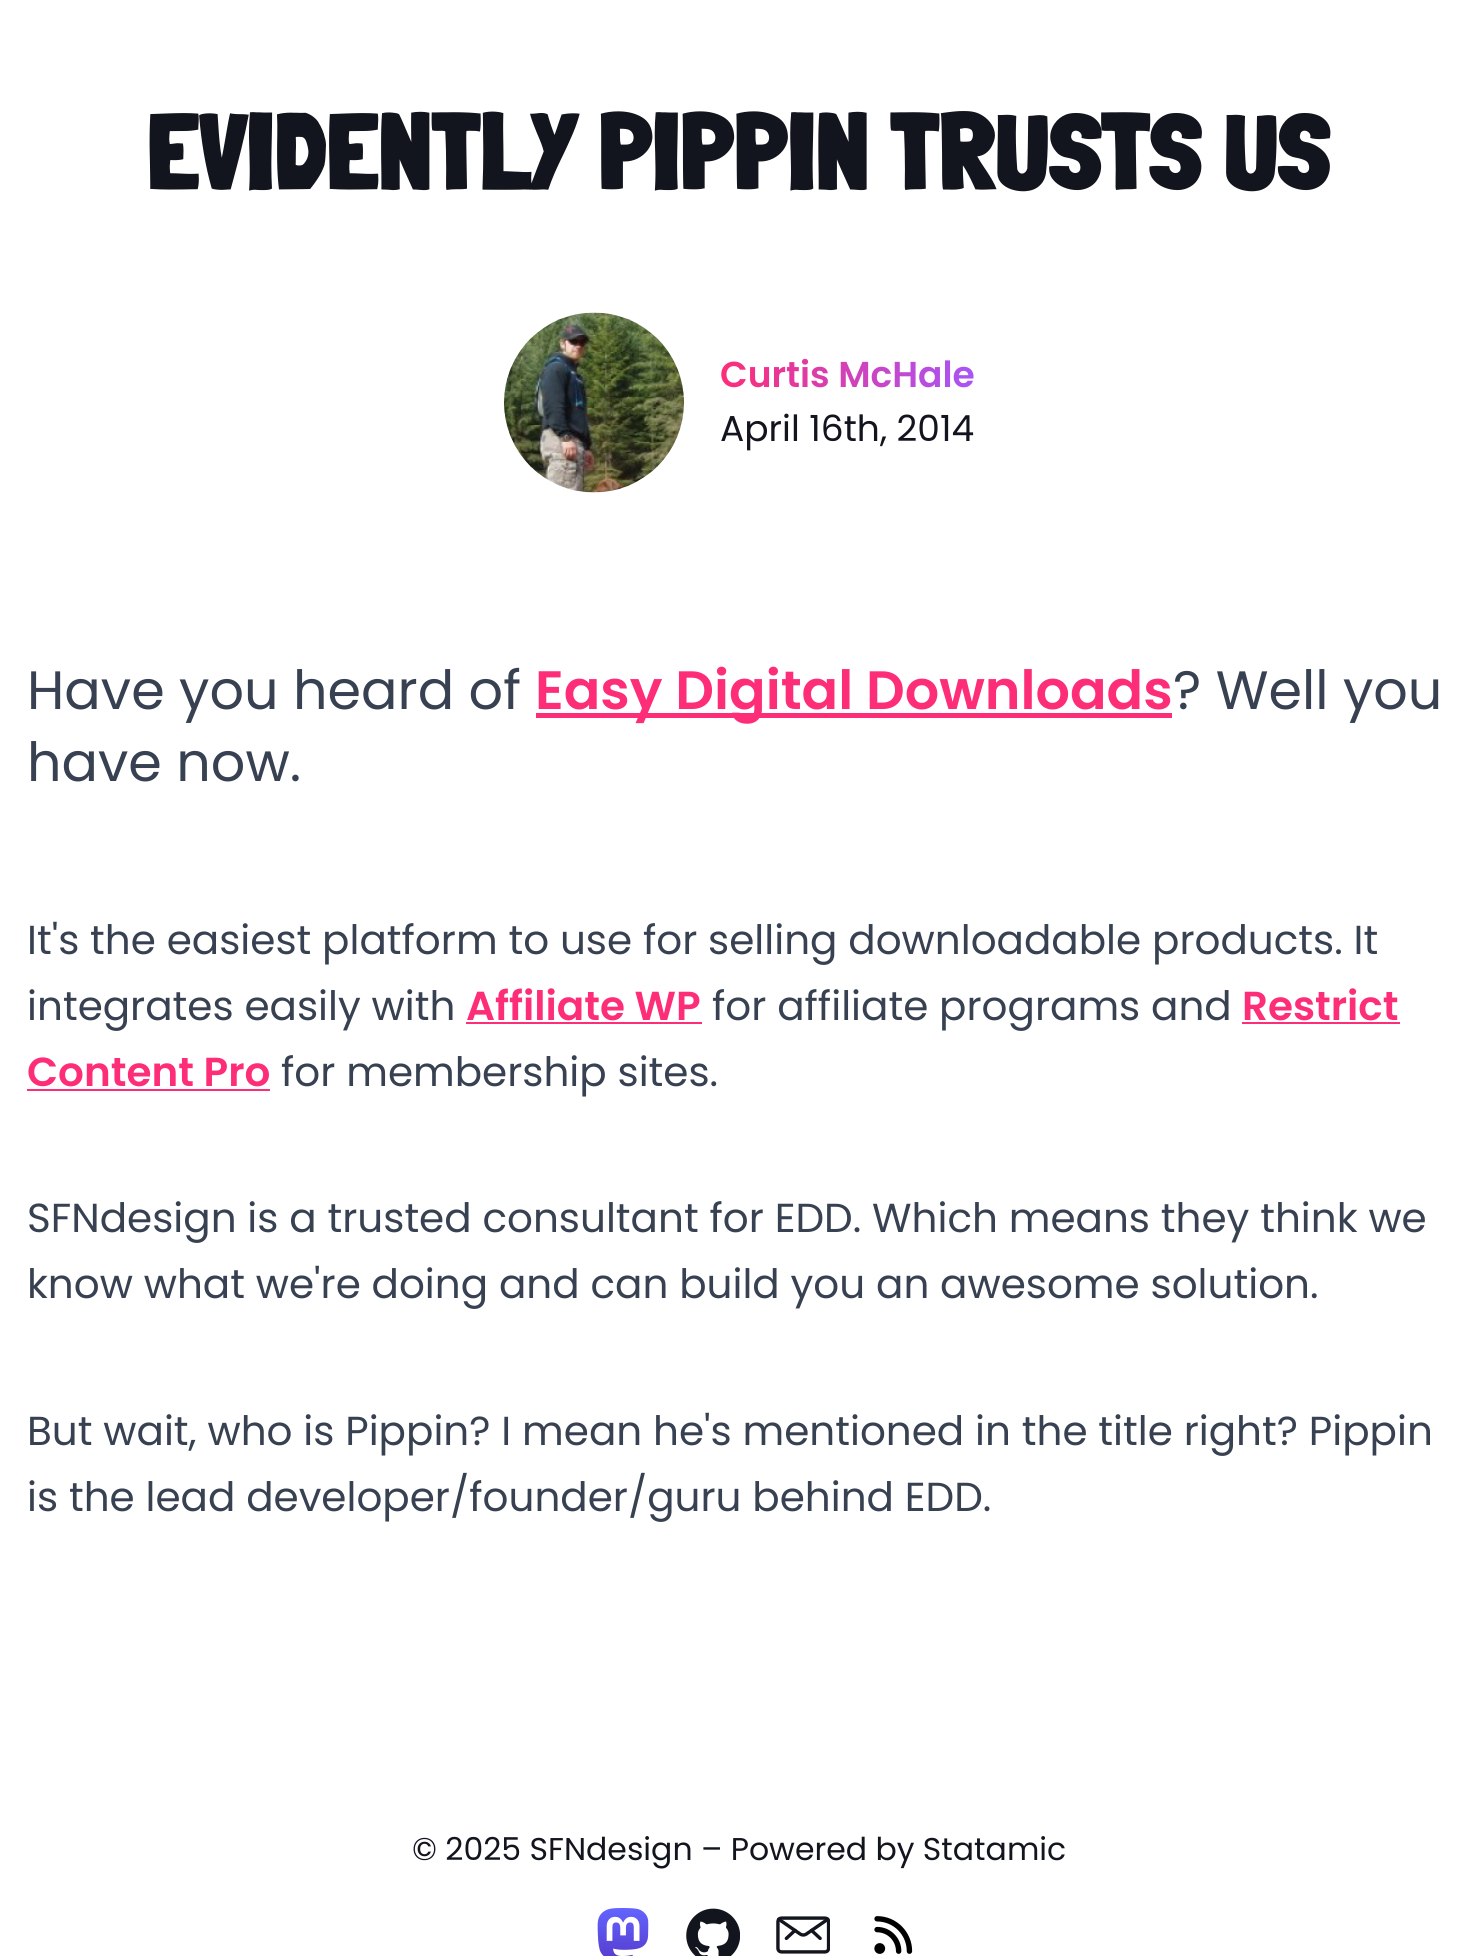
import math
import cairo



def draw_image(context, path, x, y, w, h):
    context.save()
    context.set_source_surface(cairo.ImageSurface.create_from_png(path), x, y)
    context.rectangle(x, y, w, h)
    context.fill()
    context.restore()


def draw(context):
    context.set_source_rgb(1, 1, 1)
    context.paint()
    draw_image(context, "images/1.png", 504, 312, 180, 181)
    context.set_source_rgb(253 / 255, 45 / 255, 120 / 255)
    context.rectangle(536, 713, 636, 5)
    context.fill()
    context.rectangle(466, 1022, 236, 2)
    context.fill()
    context.rectangle(1242, 1022, 158, 2)
    context.fill()
    context.rectangle(27, 1089, 243, 2)
    context.fill()
    draw_image(context, "images/2.png", 597, 1908, 52, 48)
    draw_image(context, "images/3.png", 686, 1908, 54, 48)
    draw_image(context, "images/4.png", 776, 1916, 54, 38)
    draw_image(context, "images/5.png", 874, 1916, 39, 38)
    context.select_font_face("Londrina Solid Black")
    context.set_font_size(108)
    context.set_source_rgb(18 / 255, 21 / 255, 30 / 255)
    context.move_to(147, 189)
    context.show_text("EVIDENTLY PIPPIN TRUSTS US")
    context.select_font_face("Poppins SemiBold")
    context.set_font_size(36)
    gradient = cairo.LinearGradient(720, 375, 974, 375)
    gradient.add_color_stop_rgba(0, 253 / 255, 45 / 255, 120 / 255, 1)
    gradient.add_color_stop_rgba(1, 168 / 255, 85 / 255, 247 / 255, 1)
    context.set_source(gradient)
    context.move_to(720, 387)
    context.show_text("Curtis McHale")
    context.select_font_face("Poppins")
    context.set_source_rgb(18 / 255, 21 / 255, 30 / 255)
    context.move_to(720, 441)
    context.show_text("April 16th, 2014")
    context.set_font_size(54)
    context.set_source_rgb(55 / 255, 65 / 255, 81 / 255)
    context.move_to(27, 709)
    context.show_text("Have you heard of")
    context.select_font_face("Poppins SemiBold")
    context.set_source_rgb(253 / 255, 45 / 255, 120 / 255)
    context.move_to(535, 709)
    context.show_text("Easy Digital Downloads")
    context.select_font_face("Poppins")
    context.set_source_rgb(55 / 255, 65 / 255, 81 / 255)
    context.move_to(1173, 709)
    context.show_text("? Well you")
    context.move_to(27, 781)
    context.show_text("have now.")
    context.set_font_size(40.5)
    context.move_to(27, 954)
    context.show_text("It's the easiest platform to use for selling downloadable products. It")
    context.move_to(27, 1020)
    context.show_text("integrates easily with")
    context.select_font_face("Poppins SemiBold")
    context.set_source_rgb(253 / 255, 45 / 255, 120 / 255)
    context.move_to(466, 1020)
    context.show_text("Affiliate WP")
    context.select_font_face("Poppins")
    context.set_source_rgb(55 / 255, 65 / 255, 81 / 255)
    context.move_to(712, 1020)
    context.show_text("for affiliate programs and")
    context.select_font_face("Poppins SemiBold")
    context.set_source_rgb(253 / 255, 45 / 255, 120 / 255)
    context.move_to(1242, 1020)
    context.show_text("Restrict")
    context.move_to(27, 1086)
    context.show_text("Content Pro")
    context.select_font_face("Poppins")
    context.set_source_rgb(55 / 255, 65 / 255, 81 / 255)
    context.move_to(281, 1086)
    context.show_text("for membership sites.")
    context.move_to(27, 1232)
    context.show_text("SFNdesign is a trusted consultant for EDD. Which means they think we")
    context.move_to(27, 1298)
    context.show_text("know what we're doing and can build you an awesome solution.")
    context.move_to(27, 1445)
    context.show_text("But wait, who is Pippin? I mean he's mentioned in the title right? Pippin")
    context.move_to(27, 1511)
    context.show_text("is the lead developer/founder/guru behind EDD.")
    context.set_font_size(31.5)
    context.set_source_rgb(18 / 255, 21 / 255, 30 / 255)
    context.move_to(412, 1860)
    context.show_text("© 2025 SFNdesign – Powered by Statamic")


surface = cairo.ImageSurface(cairo.Format.RGB24, 1478, 1956)
context = cairo.Context(surface)
options = cairo.FontOptions()
options.set_hint_metrics(cairo.HintMetrics.OFF)
options.set_hint_style(cairo.HintStyle.NONE)
context.set_font_options(options)
context.set_miter_limit(4)
draw(context)
surface.write_to_png("out.png")
